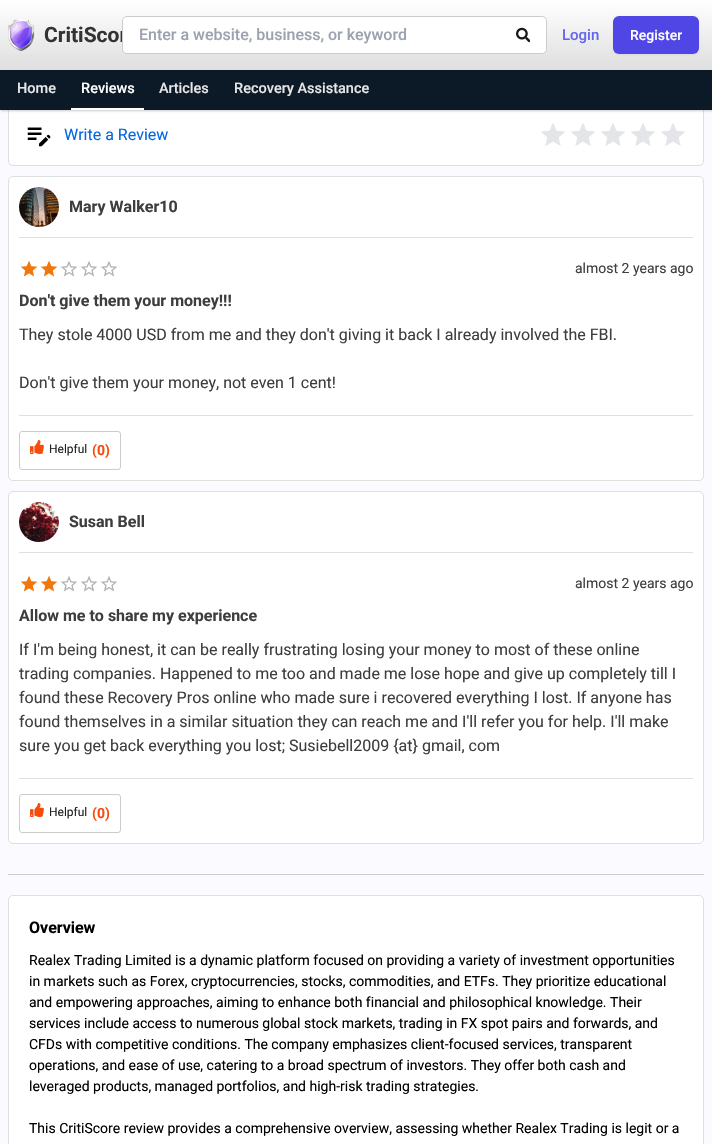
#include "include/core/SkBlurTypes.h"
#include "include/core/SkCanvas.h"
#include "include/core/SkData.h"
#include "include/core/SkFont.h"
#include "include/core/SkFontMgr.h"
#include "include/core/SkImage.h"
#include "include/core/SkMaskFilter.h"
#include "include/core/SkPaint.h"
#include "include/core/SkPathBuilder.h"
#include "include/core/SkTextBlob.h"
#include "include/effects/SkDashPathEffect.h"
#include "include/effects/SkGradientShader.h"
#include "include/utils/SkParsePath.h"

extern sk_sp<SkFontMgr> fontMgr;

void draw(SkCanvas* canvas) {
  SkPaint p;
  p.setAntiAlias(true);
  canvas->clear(SkColorSetRGB(250, 250, 255));
  p.setColor(SK_ColorWHITE);
  canvas->drawRoundRect(SkRect::MakeLTRB(8.5f, 104.5f, 703.5f, 165.5f), 4.5f, 4.5f, p);
  p.setStyle(SkPaint::kStroke_Style);
  p.setStrokeWidth(1);
  p.setColor(SkColorSetRGB(223, 223, 223));
  canvas->drawRoundRect(SkRect::MakeLTRB(8.5f, 104.5f, 703.5f, 165.5f), 4.5f, 4.5f, p);
  p.setStyle(SkPaint::kFill_Style);
  p.setColor(SkColorSetARGB(51, 0, 0, 0));
  p.setMaskFilter(SkMaskFilter::MakeBlur(kNormal_SkBlurStyle, 1));
  canvas->drawRect(SkRect::MakeLTRB(1, 1, 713, 111), p);
  p.setMaskFilter(nullptr);
  {
    const SkColor colors[] = {SK_ColorWHITE, SkColorSetRGB(204, 204, 204)};
    const float stops[] = {0, 1};
    const SkPoint ends[] = {{356, 0}, {356, 110}};
    p.setShader(SkGradientShader::MakeLinear(ends, colors, stops, 2, SkTileMode::kClamp));
    p.setAlpha(255);
  }
  canvas->drawRect(SkRect::MakeLTRB(0, 0, 712, 70), p);
  canvas->drawImageRect(SkImages::DeferredFromEncodedData(SkData::MakeFromFileName("images/1.png")), SkRect::MakeLTRB(8, 19, 35, 51), SkSamplingOptions());
  p.setShader(nullptr);
  p.setColor(SkColorSetARGB(13, 0, 0, 0));
  p.setMaskFilter(SkMaskFilter::MakeBlur(kNormal_SkBlurStyle, 1));
  canvas->drawRoundRect(SkRect::MakeLTRB(613, 17, 699, 55), 6, 6, p);
  p.setMaskFilter(nullptr);
  p.setColor(SkColorSetRGB(79, 70, 229));
  canvas->drawRoundRect(SkRect::MakeLTRB(613, 16, 699, 54), 6, 6, p);
  p.setColor(SkColorSetRGB(12, 25, 38));
  canvas->drawRect(SkRect::MakeLTRB(0, 70, 712, 110), p);
  p.setColor(SK_ColorWHITE);
  canvas->drawRect(SkRect::MakeLTRB(71, 108, 144, 110), p);
  canvas->drawImageRect(SkImages::DeferredFromEncodedData(SkData::MakeFromFileName("images/3.png")), SkRect::MakeLTRB(27, 127, 51, 147), SkSamplingOptions());
  canvas->drawImageRect(SkImages::DeferredFromEncodedData(SkData::MakeFromFileName("images/4.png")), SkRect::MakeLTRB(541, 123, 565, 146), SkSamplingOptions());
  canvas->drawImageRect(SkImages::DeferredFromEncodedData(SkData::MakeFromFileName("images/4.png")), SkRect::MakeLTRB(571, 123, 595, 146), SkSamplingOptions());
  canvas->drawImageRect(SkImages::DeferredFromEncodedData(SkData::MakeFromFileName("images/4.png")), SkRect::MakeLTRB(601, 123, 625, 146), SkSamplingOptions());
  canvas->drawImageRect(SkImages::DeferredFromEncodedData(SkData::MakeFromFileName("images/4.png")), SkRect::MakeLTRB(631, 123, 655, 146), SkSamplingOptions());
  canvas->drawImageRect(SkImages::DeferredFromEncodedData(SkData::MakeFromFileName("images/4.png")), SkRect::MakeLTRB(661, 123, 685, 146), SkSamplingOptions());
  canvas->drawRoundRect(SkRect::MakeLTRB(8.5f, 176.5f, 703.5f, 480.5f), 4.5f, 4.5f, p);
  p.setStyle(SkPaint::kStroke_Style);
  p.setColor(SkColorSetRGB(223, 223, 223));
  canvas->drawRoundRect(SkRect::MakeLTRB(8.5f, 176.5f, 703.5f, 480.5f), 4.5f, 4.5f, p);
  canvas->drawImageRect(SkImages::DeferredFromEncodedData(SkData::MakeFromFileName("images/5.png")), SkRect::MakeLTRB(19, 187, 59, 227), SkSamplingOptions());
  p.setStyle(SkPaint::kFill_Style);
  canvas->drawRect(SkRect::MakeLTRB(19, 237, 693, 238), p);
  canvas->drawRect(SkRect::MakeLTRB(19, 415, 693, 416), p);
  canvas->drawImageRect(SkImages::DeferredFromEncodedData(SkData::MakeFromFileName("images/6.png")), SkRect::MakeLTRB(20, 260, 38, 277), SkSamplingOptions());
  canvas->drawImageRect(SkImages::DeferredFromEncodedData(SkData::MakeFromFileName("images/6.png")), SkRect::MakeLTRB(40, 260, 58, 277), SkSamplingOptions());
  canvas->drawImageRect(SkImages::DeferredFromEncodedData(SkData::MakeFromFileName("images/7.png")), SkRect::MakeLTRB(60, 261, 78, 277), SkSamplingOptions());
  canvas->drawImageRect(SkImages::DeferredFromEncodedData(SkData::MakeFromFileName("images/7.png")), SkRect::MakeLTRB(80, 261, 98, 277), SkSamplingOptions());
  canvas->drawImageRect(SkImages::DeferredFromEncodedData(SkData::MakeFromFileName("images/7.png")), SkRect::MakeLTRB(100, 261, 118, 277), SkSamplingOptions());
  p.setStyle(SkPaint::kStroke_Style);
  p.setColor(SkColorSetRGB(204, 204, 204));
  canvas->drawRoundRect(SkRect::MakeLTRB(19.5f, 431.5f, 120.5f, 469.5f), 2.5f, 2.5f, p);
  canvas->drawImageRect(SkImages::DeferredFromEncodedData(SkData::MakeFromFileName("images/8.png")), SkRect::MakeLTRB(30, 440, 44, 454), SkSamplingOptions());
  p.setStyle(SkPaint::kFill_Style);
  p.setColor(SK_ColorWHITE);
  canvas->drawRoundRect(SkRect::MakeLTRB(8.5f, 491.5f, 703.5f, 843.5f), 4.5f, 4.5f, p);
  p.setStyle(SkPaint::kStroke_Style);
  p.setColor(SkColorSetRGB(223, 223, 223));
  canvas->drawRoundRect(SkRect::MakeLTRB(8.5f, 491.5f, 703.5f, 843.5f), 4.5f, 4.5f, p);
  canvas->drawImageRect(SkImages::DeferredFromEncodedData(SkData::MakeFromFileName("images/9.png")), SkRect::MakeLTRB(19, 502, 59, 542), SkSamplingOptions());
  p.setStyle(SkPaint::kFill_Style);
  canvas->drawRect(SkRect::MakeLTRB(19, 552, 693, 553), p);
  canvas->drawRect(SkRect::MakeLTRB(19, 778, 693, 779), p);
  canvas->drawImageRect(SkImages::DeferredFromEncodedData(SkData::MakeFromFileName("images/6.png")), SkRect::MakeLTRB(20, 575, 38, 592), SkSamplingOptions());
  canvas->drawImageRect(SkImages::DeferredFromEncodedData(SkData::MakeFromFileName("images/6.png")), SkRect::MakeLTRB(40, 575, 58, 592), SkSamplingOptions());
  canvas->drawImageRect(SkImages::DeferredFromEncodedData(SkData::MakeFromFileName("images/7.png")), SkRect::MakeLTRB(60, 576, 78, 592), SkSamplingOptions());
  canvas->drawImageRect(SkImages::DeferredFromEncodedData(SkData::MakeFromFileName("images/7.png")), SkRect::MakeLTRB(80, 576, 98, 592), SkSamplingOptions());
  canvas->drawImageRect(SkImages::DeferredFromEncodedData(SkData::MakeFromFileName("images/7.png")), SkRect::MakeLTRB(100, 576, 118, 592), SkSamplingOptions());
  p.setStyle(SkPaint::kStroke_Style);
  p.setColor(SkColorSetRGB(204, 204, 204));
  canvas->drawRoundRect(SkRect::MakeLTRB(19.5f, 794.5f, 120.5f, 832.5f), 2.5f, 2.5f, p);
  canvas->drawImageRect(SkImages::DeferredFromEncodedData(SkData::MakeFromFileName("images/8.png")), SkRect::MakeLTRB(30, 803, 44, 817), SkSamplingOptions());
  p.setStyle(SkPaint::kFill_Style);
  canvas->drawRect(SkRect::MakeLTRB(8, 874, 704, 875), p);
  p.setColor(SK_ColorWHITE);
  canvas->drawRoundRect(SkRect::MakeLTRB(8.5f, 895.5f, 703.5f, 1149.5f), 4.5f, 4.5f, p);
  p.setStyle(SkPaint::kStroke_Style);
  p.setColor(SkColorSetRGB(223, 223, 223));
  canvas->drawRoundRect(SkRect::MakeLTRB(8.5f, 895.5f, 703.5f, 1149.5f), 4.5f, 4.5f, p);
  SkFont font1(fontMgr->matchFamilyStyle("Roboto", SkFontStyle::Bold()), 21);
  font1.setSubpixel(true);
  p.setStyle(SkPaint::kFill_Style);
  p.setColor(SkColorSetRGB(51, 51, 51));
  canvas->drawString("CritiScor", 44, 42, font1, p);
  p.setColor(SK_ColorWHITE);
  canvas->drawRoundRect(SkRect::MakeLTRB(122.5f, 16.5f, 546.5f, 53.5f), 4.5f, 4.5f, p);
  p.setStyle(SkPaint::kStroke_Style);
  p.setColor(SkColorSetRGB(204, 204, 204));
  canvas->drawRoundRect(SkRect::MakeLTRB(122.5f, 16.5f, 546.5f, 53.5f), 4.5f, 4.5f, p);
  SkFont font2(fontMgr->matchFamilyStyle("Roboto", SkFontStyle(500, SkFontStyle::kNormal_Width, SkFontStyle::kUpright_Slant)), 16);
  font2.setSubpixel(true);
  p.setStyle(SkPaint::kFill_Style);
  p.setColor(SkColorSetRGB(156, 163, 175));
  canvas->drawString("Enter a website, business, or keyword", 139, 40, font2, p);
  canvas->drawImageRect(SkImages::DeferredFromEncodedData(SkData::MakeFromFileName("images/2.png")), SkRect::MakeLTRB(516, 27, 530, 43), SkSamplingOptions());
  SkFont font3(fontMgr->matchFamilyStyle("Roboto", SkFontStyle(500, SkFontStyle::kNormal_Width, SkFontStyle::kUpright_Slant)), 15);
  font3.setSubpixel(true);
  p.setColor(SkColorSetRGB(99, 102, 241));
  canvas->drawString("Login", 562, 40, font3, p);
  SkFont font4(fontMgr->matchFamilyStyle("Roboto", SkFontStyle(500, SkFontStyle::kNormal_Width, SkFontStyle::kUpright_Slant)), 14);
  font4.setSubpixel(true);
  p.setColor(SK_ColorWHITE);
  canvas->drawString("Register", 630, 40, font4, p);
  SkFont font5(fontMgr->matchFamilyStyle("Roboto", SkFontStyle(500, SkFontStyle::kNormal_Width, SkFontStyle::kUpright_Slant)), 14.5f);
  font5.setSubpixel(true);
  p.setColor(SkColorSetRGB(231, 231, 231));
  canvas->drawString("Home", 17, 93, font5, p);
  p.setColor(SK_ColorWHITE);
  canvas->drawString("Reviews", 81, 93, font5, p);
  p.setColor(SkColorSetRGB(231, 231, 231));
  canvas->drawString("Articles", 159, 93, font5, p);
  canvas->drawString("Recovery Assistance", 234, 93, font5, p);
  SkFont font6(fontMgr->matchFamilyStyle("Roboto", SkFontStyle::Normal()), 16);
  font6.setSubpixel(true);
  p.setColor(SkColorSetRGB(0, 103, 228));
  canvas->drawString("Write a Review", 64, 140, font6, p);
  SkFont font7(fontMgr->matchFamilyStyle("Roboto", SkFontStyle::Bold()), 16);
  font7.setSubpixel(true);
  p.setColor(SkColorSetRGB(62, 62, 62));
  canvas->drawString("Mary Walker10", 69, 212, font7, p);
  SkFont font8(fontMgr->matchFamilyStyle("Roboto", SkFontStyle::Normal()), 14);
  font8.setSubpixel(true);
  canvas->drawString("almost 2 years ago", 575, 273, font8, p);
  canvas->drawString("Don't give them your money!!!", 19, 306, font7, p);
  canvas->drawString("They stole 4000 USD from me and they don't giving it back I already involved the FBI.", 19, 340, font6, p);
  canvas->drawString("Don't give them your money, not even 1 cent!", 19, 388, font6, p);
  SkFont font9(fontMgr->matchFamilyStyle("Roboto", SkFontStyle::Normal()), 12);
  font9.setSubpixel(true);
  p.setColor(SkColorSetRGB(35, 35, 35));
  canvas->drawString("Helpful", 49, 453, font9, p);
  SkFont font10(fontMgr->matchFamilyStyle("Roboto", SkFontStyle::Bold()), 14);
  font10.setSubpixel(true);
  p.setColor(SkColorSetRGB(247, 75, 12));
  canvas->drawString("(0)", 92, 455, font10, p);
  p.setColor(SkColorSetRGB(62, 62, 62));
  canvas->drawString("Susan Bell", 69, 527, font7, p);
  canvas->drawString("almost 2 years ago", 575, 588, font8, p);
  canvas->drawString("Allow me to share my experience", 19, 621, font7, p);
  canvas->drawString("If I'm being honest, it can be really frustrating losing your money to most of these online", 19, 655, font6, p);
  canvas->drawString("trading companies. Happened to me too and made me lose hope and give up completely till I", 19, 679, font6, p);
  canvas->drawString("found these Recovery Pros online who made sure i recovered everything I lost. If anyone has", 19, 703, font6, p);
  canvas->drawString("found themselves in a similar situation they can reach me and I'll refer you for help. I'll make", 19, 727, font6, p);
  canvas->drawString("sure you get back everything you lost; Susiebell2009 {at} gmail, com", 19, 751, font6, p);
  p.setColor(SkColorSetRGB(35, 35, 35));
  canvas->drawString("Helpful", 49, 816, font9, p);
  p.setColor(SkColorSetRGB(247, 75, 12));
  canvas->drawString("(0)", 92, 818, font10, p);
  p.setColor(SK_ColorBLACK);
  canvas->drawString("Overview", 29, 933, font7, p);
  canvas->drawString("Realex Trading Limited is a dynamic platform focused on providing a variety of investment opportunities", 29, 965, font8, p);
  canvas->drawString("in markets such as Forex, cryptocurrencies, stocks, commodities, and ETFs. They prioritize educational", 29, 986, font8, p);
  canvas->drawString("and empowering approaches, aiming to enhance both financial and philosophical knowledge. Their", 29, 1007, font8, p);
  canvas->drawString("services include access to numerous global stock markets, trading in FX spot pairs and forwards, and", 29, 1028, font8, p);
  canvas->drawString("CFDs with competitive conditions. The company emphasizes client-focused services, transparent", 29, 1049, font8, p);
  canvas->drawString("operations, and ease of use, catering to a broad spectrum of investors. They offer both cash and", 29, 1070, font8, p);
  canvas->drawString("leveraged products, managed portfolios, and high-risk trading strategies.", 29, 1091, font8, p);
  canvas->drawString("This CritiScore review provides a comprehensive overview, assessing whether Realex Trading is legit or a", 29, 1133, font8, p);
}
